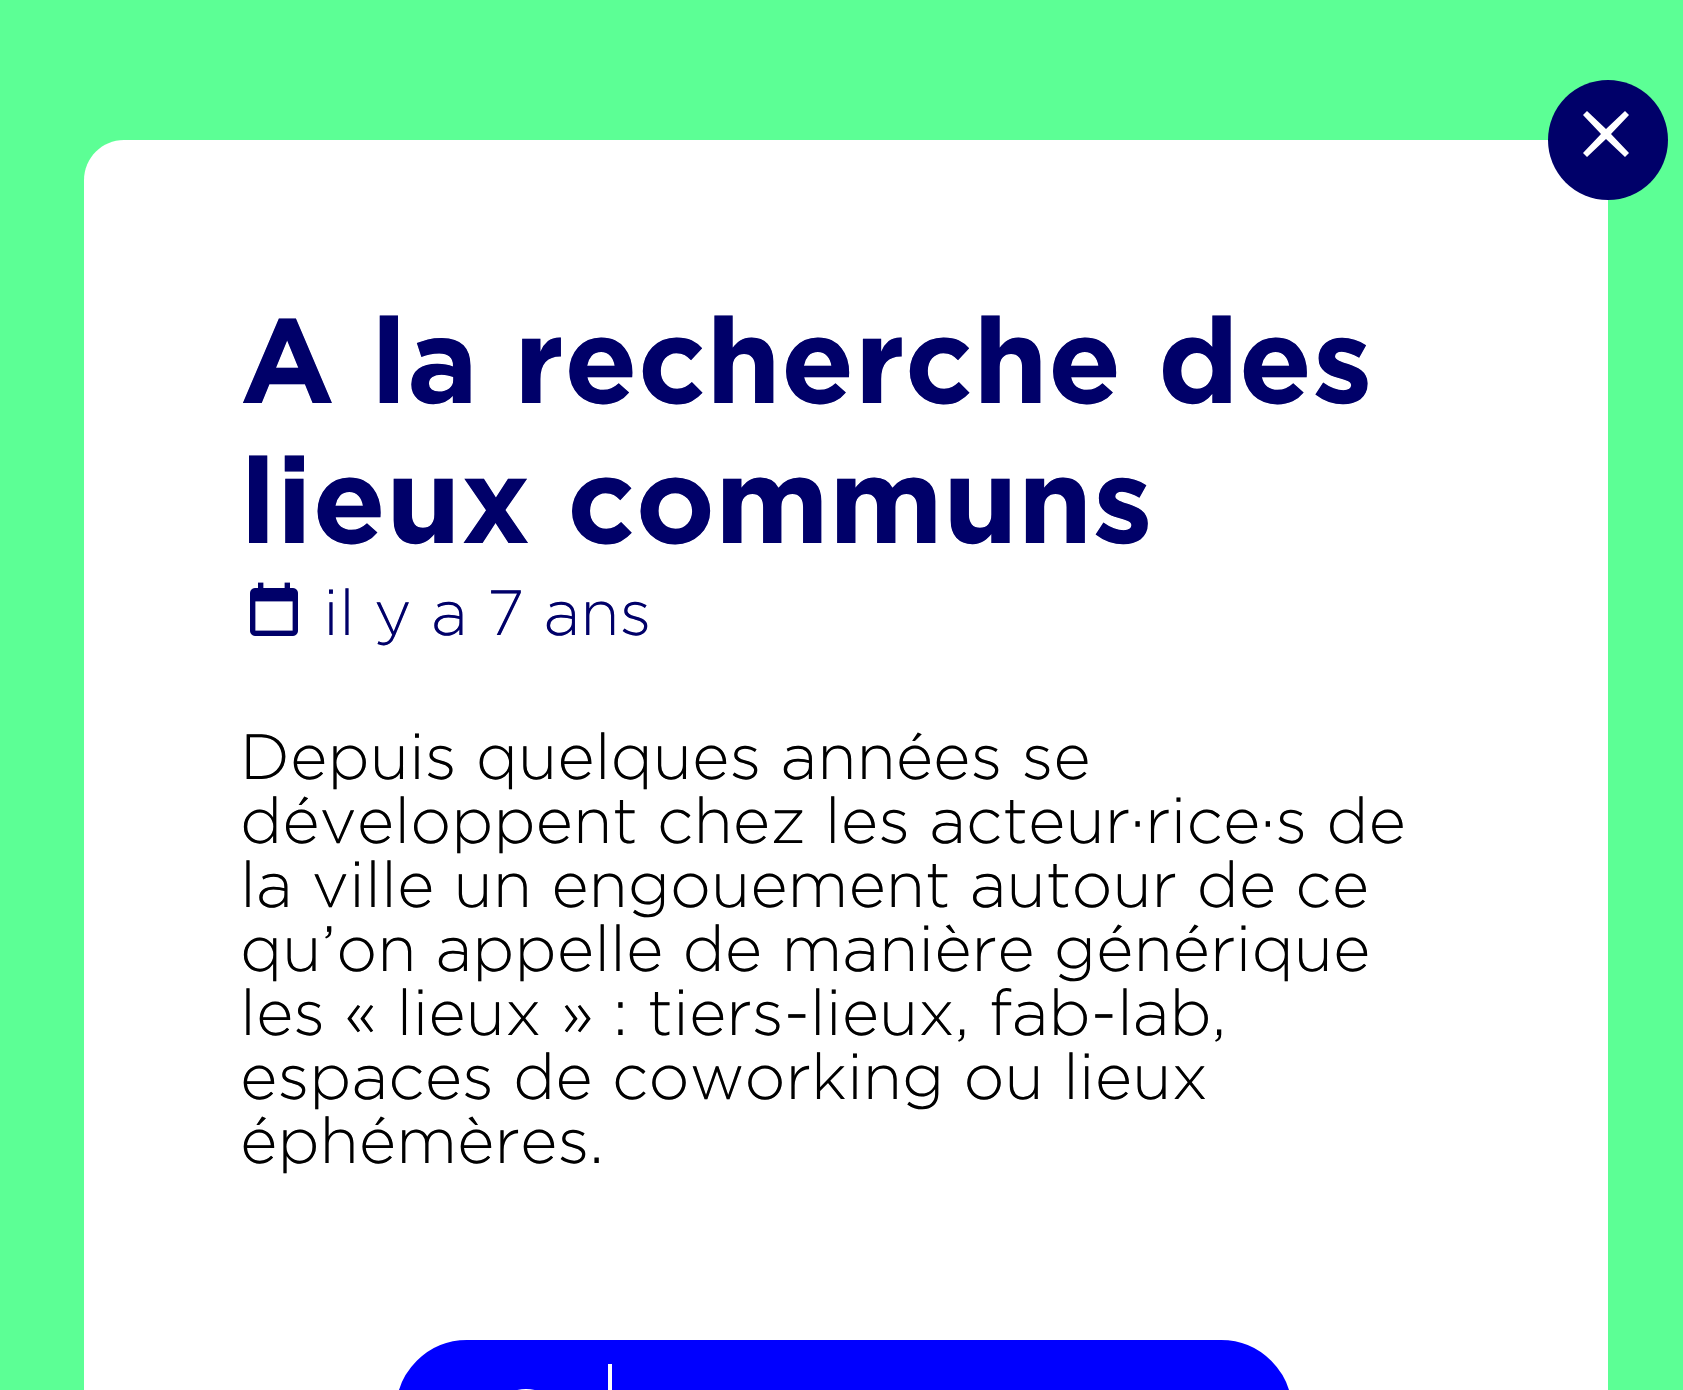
#include "include/core/SkBlurTypes.h"
#include "include/core/SkCanvas.h"
#include "include/core/SkData.h"
#include "include/core/SkFont.h"
#include "include/core/SkFontMgr.h"
#include "include/core/SkImage.h"
#include "include/core/SkMaskFilter.h"
#include "include/core/SkPaint.h"
#include "include/core/SkPathBuilder.h"
#include "include/core/SkTextBlob.h"
#include "include/effects/SkDashPathEffect.h"
#include "include/effects/SkGradientShader.h"
#include "include/utils/SkParsePath.h"

extern sk_sp<SkFontMgr> fontMgr;

void draw(SkCanvas* canvas) {
  SkPaint p;
  p.setAntiAlias(true);
  canvas->clear(SkColorSetRGB(92, 255, 149));
  p.setColor(SK_ColorWHITE);
  canvas->drawPath(SkPathBuilder().moveTo(124, 140).lineTo(1568, 140).cubicTo(1590, 140, 1608, 158, 1608, 180).lineTo(1608, 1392).lineTo(84, 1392).lineTo(84, 180).cubicTo(84, 158, 102, 140, 124, 140).close().detach(), p);
  p.setColor(SkColorSetRGB(0, 0, 105));
  canvas->drawCircle(1608, 140, 60, p);
  p.setColor(SK_ColorWHITE);
  canvas->drawPath(SkPathBuilder().moveTo(1629, 115).lineTo(1625, 111).lineTo(1606, 129).lineTo(1587, 111).lineTo(1583, 115).lineTo(1601, 134).lineTo(1583, 153).lineTo(1587, 157).lineTo(1606, 139).lineTo(1625, 157).lineTo(1629, 153).lineTo(1611, 134).close().detach(), p);
  canvas->drawImageRect(SkImages::DeferredFromEncodedData(SkData::MakeFromFileName("images/1.png")), SkRect::MakeLTRB(250, 582, 298, 636), SkSamplingOptions());
  p.setColor(SkColorSetRGB(0, 0, 255));
  canvas->drawPath(SkPathBuilder().moveTo(476, 1340).lineTo(1212, 1340).cubicTo(1256, 1340, 1292, 1376, 1292, 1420).lineTo(1292, 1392).lineTo(396, 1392).lineTo(396, 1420).cubicTo(396, 1376, 432, 1340, 476, 1340).close().detach(), p);
  p.setStyle(SkPaint::kStroke_Style);
  p.setStrokeWidth(12);
  canvas->drawRoundRect(SkRect::MakeLTRB(402, 1346, 1286, 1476), 74, 74, p);
  p.setStyle(SkPaint::kFill_Style);
  p.setColor(SK_ColorWHITE);
  canvas->drawRect(SkRect::MakeLTRB(608, 1364, 612, 1390), p);
  canvas->drawPath(SkPathBuilder().moveTo(526, 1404).cubicTo(513, 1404, 513, 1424, 526, 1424).cubicTo(539, 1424, 539, 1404, 526, 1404).close().moveTo(526, 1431).cubicTo(504, 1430, 504, 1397, 526, 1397).cubicTo(548, 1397, 548, 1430, 526, 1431).close().moveTo(526, 1389).cubicTo(510, 1389, 495, 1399, 489, 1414).cubicTo(503, 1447, 549, 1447, 563, 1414).cubicTo(557, 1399, 542, 1389, 526, 1389).close().detach(), p);
  SkFont font1(fontMgr->matchFamilyStyle("Gotham", SkFontStyle::Bold()), 120);
  font1.setSubpixel(true);
  p.setColor(SkColorSetRGB(0, 0, 105));
  canvas->drawString("A la recherche des", 240, 403, font1, p);
  canvas->drawString("lieux communs", 240, 543, font1, p);
  SkFont font2(fontMgr->matchFamilyStyle("Gotham", SkFontStyle(300, SkFontStyle::kNormal_Width, SkFontStyle::kUpright_Slant)), 64);
  font2.setSubpixel(true);
  canvas->drawString("il y a 7 ans", 323, 635, font2, p);
  p.setColor(SK_ColorBLACK);
  canvas->drawString("Depuis quelques années se", 240, 779, font2, p);
  canvas->drawString("développent chez les acteur·rice·s de", 240, 843, font2, p);
  canvas->drawString("la ville un engouement autour de ce", 240, 907, font2, p);
  canvas->drawString("qu’on appelle de manière générique", 240, 971, font2, p);
  canvas->drawString("les « lieux » : tiers-lieux, fab-lab,", 240, 1035, font2, p);
  canvas->drawString("espaces de coworking ou lieux", 240, 1099, font2, p);
  canvas->drawString("éphémères.", 240, 1163, font2, p);
}
